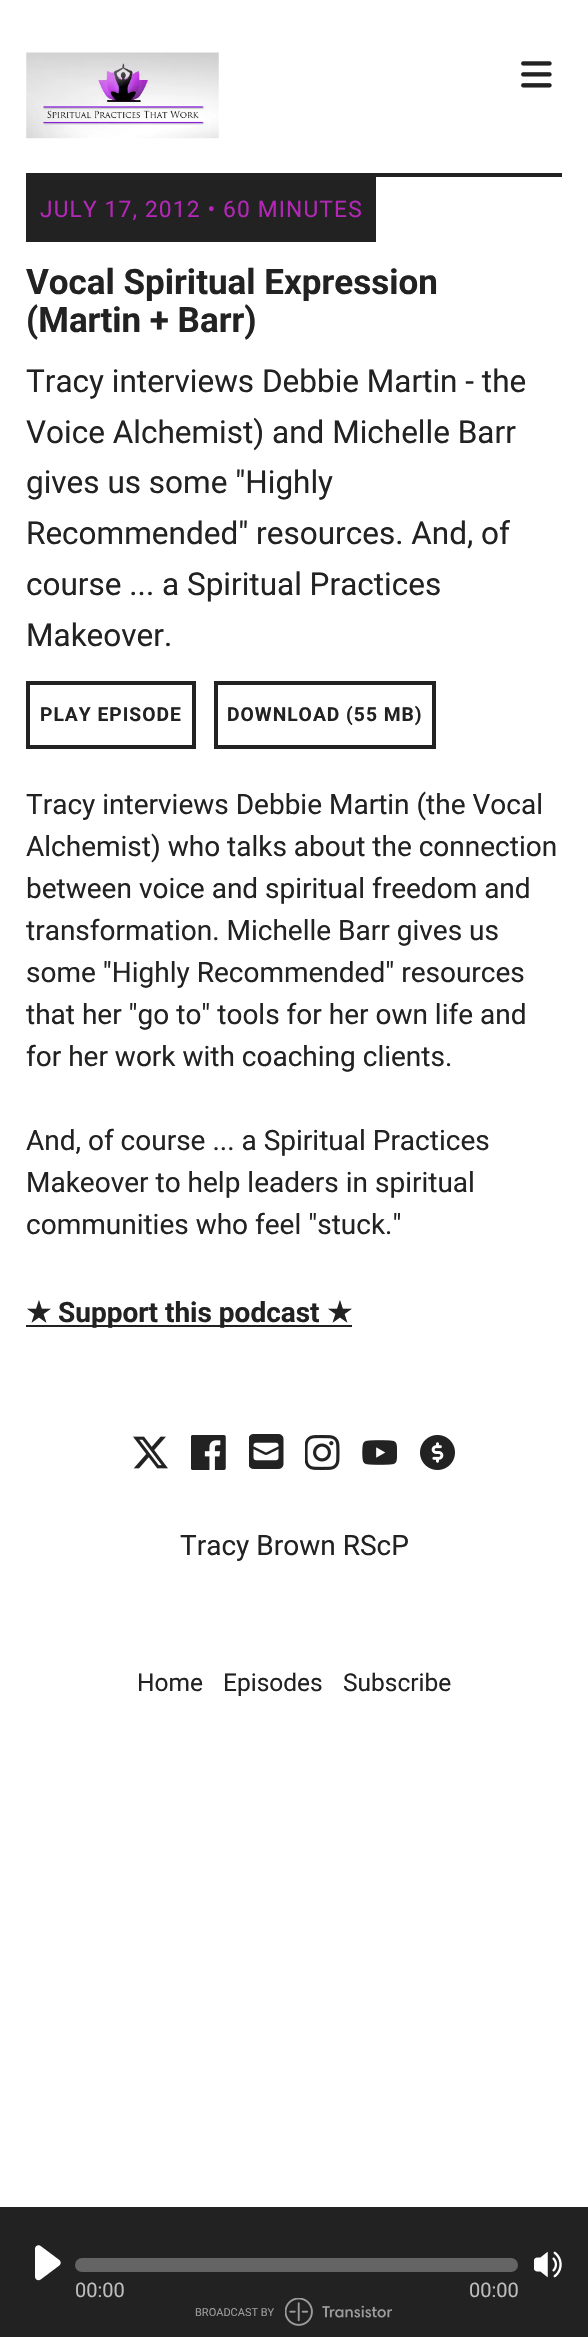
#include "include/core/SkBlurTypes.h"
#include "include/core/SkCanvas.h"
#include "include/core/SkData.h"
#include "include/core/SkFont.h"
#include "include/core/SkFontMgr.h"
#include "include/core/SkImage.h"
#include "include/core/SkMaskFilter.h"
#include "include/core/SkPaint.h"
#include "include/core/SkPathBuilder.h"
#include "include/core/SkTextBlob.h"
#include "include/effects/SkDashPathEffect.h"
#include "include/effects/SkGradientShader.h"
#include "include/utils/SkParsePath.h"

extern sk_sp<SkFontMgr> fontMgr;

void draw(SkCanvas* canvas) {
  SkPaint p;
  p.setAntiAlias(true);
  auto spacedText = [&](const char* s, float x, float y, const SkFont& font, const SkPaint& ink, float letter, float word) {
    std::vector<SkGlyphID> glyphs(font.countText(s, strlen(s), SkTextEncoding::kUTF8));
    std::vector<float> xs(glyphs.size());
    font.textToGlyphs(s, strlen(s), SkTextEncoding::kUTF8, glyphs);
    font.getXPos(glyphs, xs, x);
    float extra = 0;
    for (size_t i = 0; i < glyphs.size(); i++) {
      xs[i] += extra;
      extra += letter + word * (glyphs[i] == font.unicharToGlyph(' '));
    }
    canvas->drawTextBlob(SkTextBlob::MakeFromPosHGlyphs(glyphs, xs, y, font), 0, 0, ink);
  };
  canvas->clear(SK_ColorWHITE);
  canvas->drawImageRect(SkImages::DeferredFromEncodedData(SkData::MakeFromFileName("images/1.png")), SkRect::MakeLTRB(521, 61, 552, 88), SkSamplingOptions());
  canvas->drawImageRect(SkImages::DeferredFromEncodedData(SkData::MakeFromFileName("images/2.png")), SkRect::MakeLTRB(26, 52, 219, 139), SkSamplingOptions());
  p.setColor(SkColorSetRGB(34, 34, 34));
  canvas->drawRect(SkRect::MakeLTRB(26, 173, 562, 177), p);
  canvas->drawRect(SkRect::MakeLTRB(26, 177, 376, 242), p);
  p.setStyle(SkPaint::kStroke_Style);
  p.setStrokeWidth(4);
  canvas->drawRect(SkRect::MakeLTRB(28, 683, 194, 747), p);
  canvas->drawRect(SkRect::MakeLTRB(216, 683, 434, 747), p);
  p.setStyle(SkPaint::kFill_Style);
  canvas->drawRect(SkRect::MakeLTRB(26, 1325, 352, 1327), p);
  canvas->drawImageRect(SkImages::DeferredFromEncodedData(SkData::MakeFromFileName("images/3.png")), SkRect::MakeLTRB(133, 1436, 168, 1469), SkSamplingOptions());
  canvas->drawImageRect(SkImages::DeferredFromEncodedData(SkData::MakeFromFileName("images/4.png")), SkRect::MakeLTRB(191, 1435, 226, 1470), SkSamplingOptions());
  canvas->drawImageRect(SkImages::DeferredFromEncodedData(SkData::MakeFromFileName("images/5.png")), SkRect::MakeLTRB(249, 1434, 284, 1469), SkSamplingOptions());
  canvas->drawImageRect(SkImages::DeferredFromEncodedData(SkData::MakeFromFileName("images/6.png")), SkRect::MakeLTRB(305, 1435, 340, 1470), SkSamplingOptions());
  canvas->drawImageRect(SkImages::DeferredFromEncodedData(SkData::MakeFromFileName("images/7.png")), SkRect::MakeLTRB(362, 1440, 397, 1465), SkSamplingOptions());
  canvas->drawImageRect(SkImages::DeferredFromEncodedData(SkData::MakeFromFileName("images/8.png")), SkRect::MakeLTRB(420, 1435, 455, 1470), SkSamplingOptions());
  canvas->drawRect(SkRect::MakeLTRB(0, 2207, 588, 2337), p);
  canvas->drawImageRect(SkImages::DeferredFromEncodedData(SkData::MakeFromFileName("images/9.png")), SkRect::MakeLTRB(35, 2245, 61, 2281), SkSamplingOptions());
  canvas->drawImageRect(SkImages::DeferredFromEncodedData(SkData::MakeFromFileName("images/10.png")), SkRect::MakeLTRB(534, 2251, 562, 2278), SkSamplingOptions());
  p.setColor(SkColorSetRGB(100, 100, 100));
  canvas->drawRoundRect(SkRect::MakeLTRB(75, 2258, 518, 2272), 7, 7, p);
  canvas->drawImageRect(SkImages::DeferredFromEncodedData(SkData::MakeFromFileName("images/11.png")), SkRect::MakeLTRB(285, 2298, 392, 2326), SkSamplingOptions());
  SkFont font1(fontMgr->matchFamilyStyle("Roboto", SkFontStyle::Normal()), 22.75f);
  font1.setSubpixel(true);
  p.setColor(SkColorSetRGB(179, 39, 182));
  spacedText("JULY 17, 2012 • 60 MINUTES", 40, 217, font1, p, 1.15f, 0);
  SkFont font2(fontMgr->matchFamilyStyle("Roboto", SkFontStyle::Bold()), 35);
  font2.setSubpixel(true);
  p.setColor(SkColorSetRGB(34, 34, 34));
  canvas->drawString("Vocal Spiritual Expression", 26, 294, font2, p);
  canvas->drawString("(Martin + Barr)", 26, 332, font2, p);
  SkFont font3(fontMgr->matchFamilyStyle("Roboto", SkFontStyle::Normal()), 31.5f);
  font3.setSubpixel(true);
  canvas->drawString("Tracy interviews Debbie Martin - the", 26, 392, font3, p);
  canvas->drawString("Voice Alchemist) and Michelle Barr", 26, 443, font3, p);
  canvas->drawString("gives us some \"Highly", 26, 493, font3, p);
  canvas->drawString("Recommended\" resources. And, of", 26, 544, font3, p);
  canvas->drawString("course ... a Spiritual Practices", 26, 595, font3, p);
  canvas->drawString("Makeover.", 26, 646, font3, p);
  SkFont font4(fontMgr->matchFamilyStyle("Roboto", SkFontStyle::Bold()), 19.25f);
  font4.setSubpixel(true);
  spacedText("PLAY EPISODE", 40, 721, font4, p, 1, 0);
  spacedText("DOWNLOAD (55 MB)", 227, 721, font4, p, 1, 0);
  SkFont font5(fontMgr->matchFamilyStyle("Roboto", SkFontStyle::Normal()), 28);
  font5.setSubpixel(true);
  canvas->drawString("Tracy interviews Debbie Martin (the Vocal", 26, 814, font5, p);
  canvas->drawString("Alchemist) who talks about the connection", 26, 856, font5, p);
  canvas->drawString("between voice and spiritual freedom and", 26, 898, font5, p);
  canvas->drawString("transformation. Michelle Barr gives us", 26, 940, font5, p);
  canvas->drawString("some \"Highly Recommended\" resources", 26, 982, font5, p);
  canvas->drawString("that her \"go to\" tools for her own life and", 26, 1024, font5, p);
  canvas->drawString("for her work with coaching clients.", 26, 1066, font5, p);
  canvas->drawString("And, of course ... a Spiritual Practices", 26, 1150, font5, p);
  canvas->drawString("Makeover to help leaders in spiritual", 26, 1192, font5, p);
  canvas->drawString("communities who feel \"stuck.\"", 26, 1234, font5, p);
  SkFont font6(fontMgr->matchFamilyStyle("DejaVu Sans", SkFontStyle::Bold()), 28);
  font6.setSubpixel(true);
  canvas->drawString("★", 26, 1322, font6, p);
  SkFont font7(fontMgr->matchFamilyStyle("Roboto", SkFontStyle::Bold()), 28);
  font7.setSubpixel(true);
  canvas->drawString("Support this podcast", 58, 1322, font7, p);
  canvas->drawString("★", 327, 1322, font6, p);
  canvas->drawString("Tracy Brown RScP", 180, 1555, font5, p);
  SkFont font8(fontMgr->matchFamilyStyle("Roboto", SkFontStyle::Normal()), 24.5f);
  font8.setSubpixel(true);
  canvas->drawString("Home", 137, 1691, font8, p);
  canvas->drawString("Episodes", 223, 1691, font8, p);
  canvas->drawString("Subscribe", 343, 1691, font8, p);
  SkFont font9(fontMgr->matchFamilyStyle("Roboto", SkFontStyle::Normal()), 20);
  font9.setSubpixel(true);
  p.setColor(SkColorSetRGB(189, 189, 189));
  canvas->drawString("00:00", 75, 2297, font9, p);
  canvas->drawString("00:00", 469, 2297, font9, p);
  SkFont font10(fontMgr->matchFamilyStyle("Roboto", SkFontStyle::Normal()), 11);
  font10.setSubpixel(true);
  p.setColor(SkColorSetRGB(156, 156, 156));
  canvas->drawString("BROADCAST BY", 195, 2316, font10, p);
}
